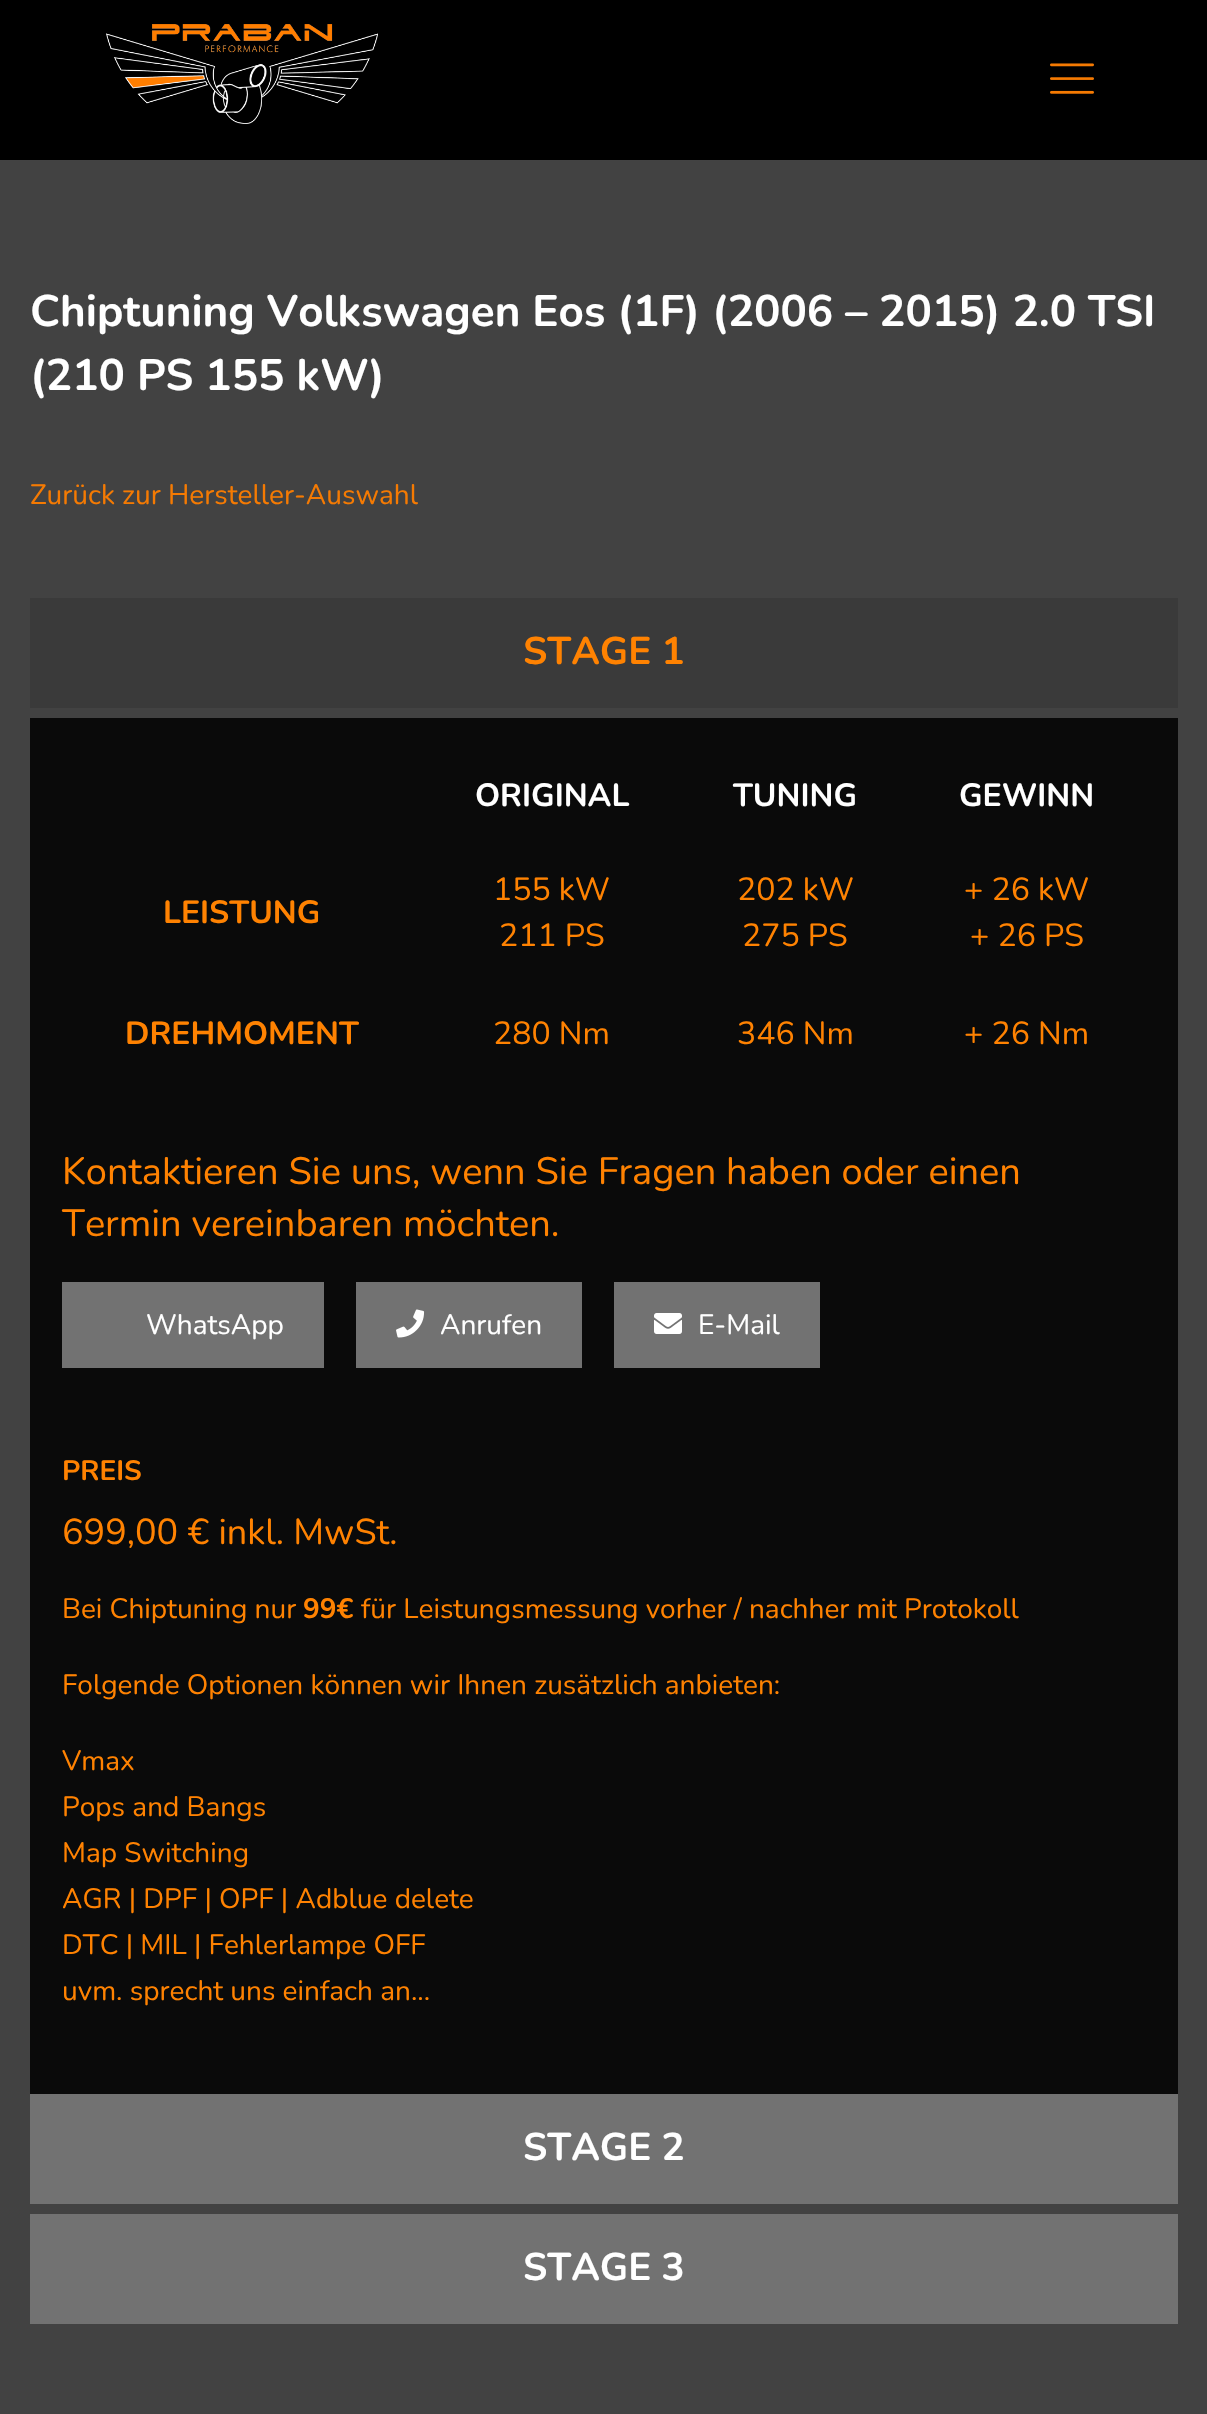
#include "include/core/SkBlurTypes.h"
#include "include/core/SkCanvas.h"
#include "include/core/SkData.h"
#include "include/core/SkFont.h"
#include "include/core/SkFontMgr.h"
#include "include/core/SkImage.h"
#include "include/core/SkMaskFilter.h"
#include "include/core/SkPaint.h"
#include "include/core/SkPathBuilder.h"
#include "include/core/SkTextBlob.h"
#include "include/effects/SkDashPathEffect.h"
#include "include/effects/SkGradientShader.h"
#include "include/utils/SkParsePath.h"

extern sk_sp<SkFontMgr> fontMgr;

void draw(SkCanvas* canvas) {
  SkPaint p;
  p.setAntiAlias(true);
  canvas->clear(SkColorSetRGB(66, 66, 66));
  p.setColor(SK_ColorBLACK);
  canvas->drawRect(SkRect::MakeLTRB(0, 0, 1207, 160), p);
  canvas->drawImageRect(SkImages::DeferredFromEncodedData(SkData::MakeFromFileName("images/1.png")), SkRect::MakeLTRB(106, 24, 378, 124), SkSamplingOptions());
  canvas->drawImageRect(SkImages::DeferredFromEncodedData(SkData::MakeFromFileName("images/2.png")), SkRect::MakeLTRB(1050, 63, 1094, 94), SkSamplingOptions());
  p.setColor(SkColorSetRGB(58, 58, 58));
  canvas->drawRect(SkRect::MakeLTRB(30, 598, 1178, 708), p);
  p.setColor(SkColorSetRGB(10, 10, 10));
  canvas->drawRect(SkRect::MakeLTRB(30, 718, 1178, 2094), p);
  p.setColor(SkColorSetRGB(114, 114, 114));
  canvas->drawRect(SkRect::MakeLTRB(62, 1282, 324, 1368), p);
  canvas->drawRect(SkRect::MakeLTRB(356, 1282, 582, 1368), p);
  canvas->drawImageRect(SkImages::DeferredFromEncodedData(SkData::MakeFromFileName("images/3.png")), SkRect::MakeLTRB(396, 1309, 425, 1338), SkSamplingOptions());
  canvas->drawRect(SkRect::MakeLTRB(614, 1282, 820, 1368), p);
  canvas->drawImageRect(SkImages::DeferredFromEncodedData(SkData::MakeFromFileName("images/4.png")), SkRect::MakeLTRB(654, 1313, 682, 1334), SkSamplingOptions());
  canvas->drawRect(SkRect::MakeLTRB(30, 2094, 1178, 2204), p);
  canvas->drawRect(SkRect::MakeLTRB(30, 2214, 1178, 2324), p);
  SkFont font1(fontMgr->matchFamilyStyle("Nunito", SkFontStyle::Bold()), 44);
  font1.setSubpixel(true);
  p.setColor(SK_ColorWHITE);
  canvas->drawString("Chiptuning Volkswagen Eos (1F) (2006 – 2015) 2.0 TSI", 30, 326, font1, p);
  canvas->drawString("(210 PS 155 kW)", 30, 390, font1, p);
  SkFont font2(fontMgr->matchFamilyStyle("Nunito", SkFontStyle::Normal()), 28);
  font2.setSubpixel(true);
  p.setColor(SkColorSetRGB(245, 122, 2));
  canvas->drawString("Zurück zur Hersteller-Auswahl", 30, 504, font2, p);
  SkFont font3(fontMgr->matchFamilyStyle("Nunito", SkFontStyle::Bold()), 38.5f);
  font3.setSubpixel(true);
  p.setColor(SkColorSetRGB(255, 130, 1));
  canvas->drawString("STAGE 1", 523, 664, font3, p);
  SkFont font4(fontMgr->matchFamilyStyle("Nunito", SkFontStyle::Bold()), 32);
  font4.setSubpixel(true);
  p.setColor(SK_ColorWHITE);
  canvas->drawString("ORIGINAL", 475, 806, font4, p);
  canvas->drawString("TUNING", 733, 806, font4, p);
  canvas->drawString("GEWINN", 959, 806, font4, p);
  p.setColor(SkColorSetRGB(255, 130, 1));
  canvas->drawString("LEISTUNG", 163, 923, font4, p);
  SkFont font5(fontMgr->matchFamilyStyle("Nunito", SkFontStyle::Normal()), 32);
  font5.setSubpixel(true);
  canvas->drawString("155 kW", 493, 900, font5, p);
  canvas->drawString("211 PS", 499, 946, font5, p);
  canvas->drawString("202 kW", 737, 900, font5, p);
  canvas->drawString("275 PS", 742, 946, font5, p);
  canvas->drawString("+ 26 kW", 964, 900, font5, p);
  canvas->drawString("+ 26 PS", 970, 946, font5, p);
  canvas->drawString("DREHMOMENT", 125, 1044, font4, p);
  canvas->drawString("280 Nm", 493, 1044, font5, p);
  canvas->drawString("346 Nm", 737, 1044, font5, p);
  canvas->drawString("+ 26 Nm", 964, 1044, font5, p);
  SkFont font6(fontMgr->matchFamilyStyle("Nunito", SkFontStyle::Normal()), 38);
  font6.setSubpixel(true);
  canvas->drawString("Kontaktieren Sie uns, wenn Sie Fragen haben oder einen", 62, 1184, font6, p);
  canvas->drawString("Termin vereinbaren möchten.", 62, 1236, font6, p);
  p.setColor(SK_ColorWHITE);
  canvas->drawString("WhatsApp", 146, 1334, font2, p);
  canvas->drawString("Anrufen", 440, 1334, font2, p);
  canvas->drawString("E-Mail", 698, 1334, font2, p);
  SkFont font7(fontMgr->matchFamilyStyle("Nunito", SkFontStyle::Bold()), 28);
  font7.setSubpixel(true);
  p.setColor(SkColorSetRGB(255, 130, 1));
  canvas->drawString("PREIS", 62, 1480, font7, p);
  SkFont font8(fontMgr->matchFamilyStyle("Nunito", SkFontStyle::Normal()), 36);
  font8.setSubpixel(true);
  canvas->drawString("699,00 € inkl. MwSt.", 62, 1544, font8, p);
  canvas->drawString("Bei Chiptuning nur", 62, 1618, font2, p);
  canvas->drawString("99€", 303, 1618, font7, p);
  canvas->drawString("für Leistungsmessung vorher / nachher mit Protokoll", 361, 1618, font2, p);
  canvas->drawString("Folgende Optionen können wir Ihnen zusätzlich anbieten:", 62, 1694, font2, p);
  canvas->drawString("Vmax", 62, 1770, font2, p);
  canvas->drawString("Pops and Bangs", 62, 1816, font2, p);
  canvas->drawString("Map Switching", 62, 1862, font2, p);
  canvas->drawString("AGR | DPF | OPF | Adblue delete", 62, 1908, font2, p);
  canvas->drawString("DTC | MIL | Fehlerlampe OFF", 62, 1954, font2, p);
  canvas->drawString("uvm. sprecht uns einfach an...", 62, 2000, font2, p);
  p.setColor(SK_ColorWHITE);
  canvas->drawString("STAGE 2", 523, 2160, font3, p);
  canvas->drawString("STAGE 3", 523, 2280, font3, p);
}
